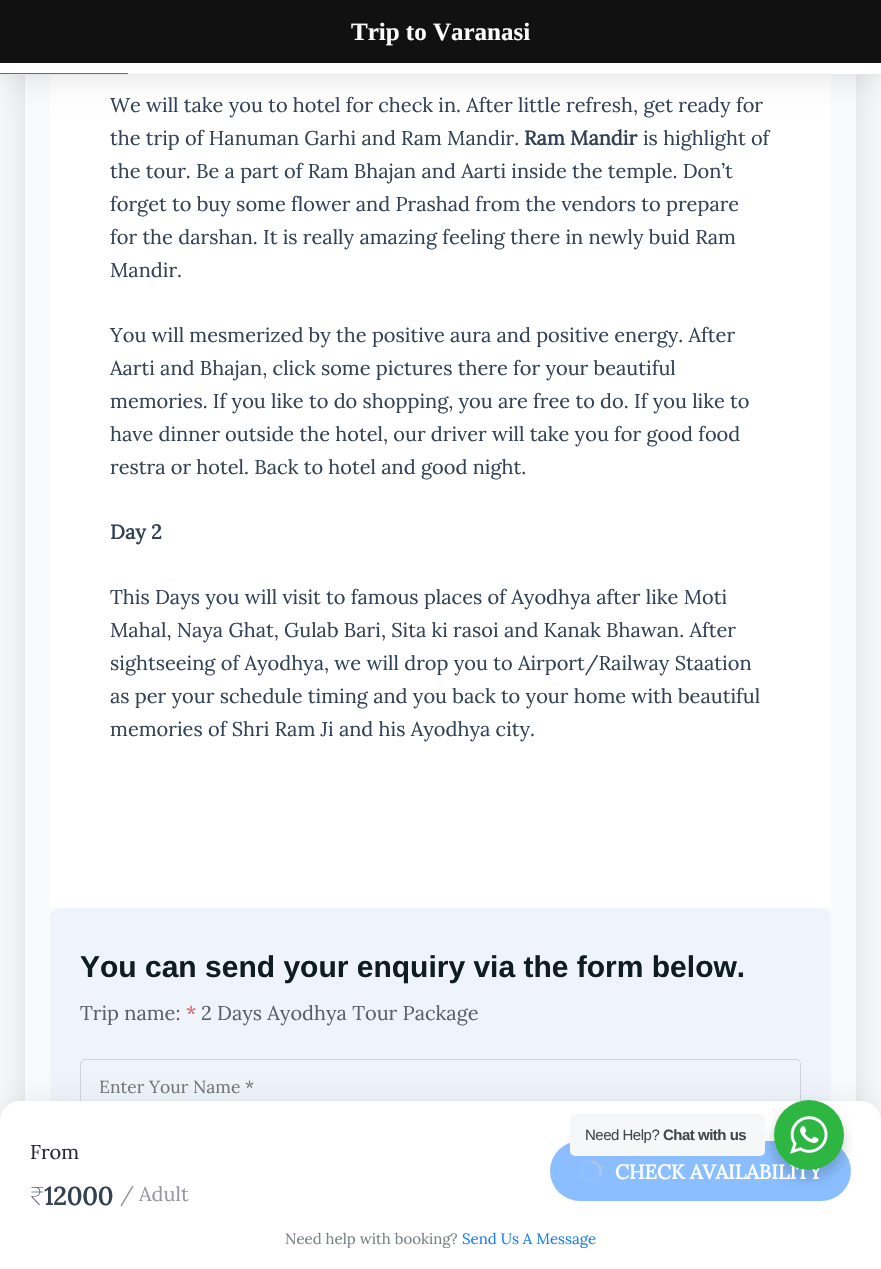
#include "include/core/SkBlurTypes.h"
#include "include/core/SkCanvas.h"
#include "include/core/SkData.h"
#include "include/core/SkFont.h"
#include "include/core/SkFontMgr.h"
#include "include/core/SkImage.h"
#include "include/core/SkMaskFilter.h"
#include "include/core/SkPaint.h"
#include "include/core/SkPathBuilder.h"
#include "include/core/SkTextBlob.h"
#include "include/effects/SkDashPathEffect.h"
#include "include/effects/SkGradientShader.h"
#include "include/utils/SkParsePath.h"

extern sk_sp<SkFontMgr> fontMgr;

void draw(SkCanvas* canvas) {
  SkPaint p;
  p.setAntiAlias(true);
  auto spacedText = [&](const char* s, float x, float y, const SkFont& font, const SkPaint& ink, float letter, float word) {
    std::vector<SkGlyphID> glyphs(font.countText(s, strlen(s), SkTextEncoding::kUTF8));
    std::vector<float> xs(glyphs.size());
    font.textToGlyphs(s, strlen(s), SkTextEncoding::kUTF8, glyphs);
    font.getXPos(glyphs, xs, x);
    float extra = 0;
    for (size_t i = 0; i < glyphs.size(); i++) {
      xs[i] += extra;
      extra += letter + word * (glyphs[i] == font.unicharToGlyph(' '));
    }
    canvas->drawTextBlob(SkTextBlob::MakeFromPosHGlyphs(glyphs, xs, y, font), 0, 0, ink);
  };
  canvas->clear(SkColorSetRGB(249, 250, 251));
  canvas->save();
  canvas->clipPath(SkPathBuilder(SkPathFillType::kEvenOdd).moveTo(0, 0).lineTo(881, 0).lineTo(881, 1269).lineTo(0, 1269).close().moveTo(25, -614).lineTo(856, -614).lineTo(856, 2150).lineTo(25, 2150).close().detach(), true);
  p.setColor(SkColorSetARGB(51, 100, 100, 111));
  p.setMaskFilter(SkMaskFilter::MakeBlur(kNormal_SkBlurStyle, 18));
  canvas->drawRect(SkRect::MakeLTRB(25, -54, 856, 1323), p);
  p.setMaskFilter(nullptr);
  canvas->restore();
  p.setColor(SK_ColorWHITE);
  canvas->drawRect(SkRect::MakeLTRB(50, 75, 831, 908), p);
  p.setColor(SkColorSetARGB(26, 0, 0, 0));
  p.setMaskFilter(SkMaskFilter::MakeBlur(kNormal_SkBlurStyle, 15.5f));
  canvas->drawRect(SkRect::MakeLTRB(0, 3, 881, 78), p);
  p.setMaskFilter(nullptr);
  p.setColor(SkColorSetRGB(17, 17, 17));
  canvas->drawRect(SkRect::MakeLTRB(0, 0, 881, 63), p);
  p.setColor(SK_ColorWHITE);
  canvas->drawRect(SkRect::MakeLTRB(0, 63, 881, 74), p);
  p.setColor(SkColorSetRGB(230, 231, 232));
  canvas->drawRect(SkRect::MakeLTRB(0, 74, 881, 75), p);
  p.setColor(SkColorSetRGB(20, 125, 254));
  canvas->drawRect(SkRect::MakeLTRB(0, 73, 128, 74), p);
  p.setColor(SkColorSetRGB(239, 244, 252));
  canvas->drawRoundRect(SkRect::MakeLTRB(50, 908, 831, 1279), 10, 10, p);
  p.setStyle(SkPaint::kStroke_Style);
  p.setStrokeWidth(1);
  p.setColor(SkColorSetRGB(204, 213, 216));
  canvas->drawRoundRect(SkRect::MakeLTRB(80.5f, 1059.5f, 800.5f, 1115.5f), 4.5f, 4.5f, p);
  p.setStyle(SkPaint::kFill_Style);
  p.setColor(SkColorSetARGB(51, 100, 100, 111));
  p.setMaskFilter(SkMaskFilter::MakeBlur(kNormal_SkBlurStyle, 18));
  canvas->drawRoundRect(SkRect::MakeLTRB(0, 1110, 881, 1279), 20, 20, p);
  p.setMaskFilter(nullptr);
  p.setColor(SK_ColorWHITE);
  canvas->drawPath(SkPathBuilder().moveTo(20, 1101).lineTo(861, 1101).cubicTo(872, 1101, 881, 1110, 881, 1121).lineTo(881, 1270).lineTo(0, 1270).lineTo(0, 1121).cubicTo(0, 1110, 9, 1101, 20, 1101).close().detach(), p);
  p.setColor(SkColorSetRGB(138, 190, 255));
  canvas->drawRoundRect(SkRect::MakeLTRB(550, 1141, 851, 1201), 30, 30, p);
  canvas->drawImageRect(SkImages::DeferredFromEncodedData(SkData::MakeFromFileName("images/1.png")), SkRect::MakeLTRB(580, 1160, 602, 1182), SkSamplingOptions());
  p.setColor(SkColorSetARGB(36, 0, 0, 0));
  p.setMaskFilter(SkMaskFilter::MakeBlur(kNormal_SkBlurStyle, 5));
  canvas->drawRoundRect(SkRect::MakeLTRB(771, 1105, 846, 1180), 37.5f, 37.5f, p);
  p.setMaskFilter(nullptr);
  p.setColor(SkColorSetRGB(245, 247, 249));
  canvas->drawRoundRect(SkRect::MakeLTRB(570, 1114, 765, 1156), 5, 5, p);
  SkFont font1(fontMgr->matchFamilyStyle("Liberation Serif", SkFontStyle::Bold()), 25);
  font1.setSubpixel(true);
  p.setColor(SK_ColorWHITE);
  canvas->drawString("Trip to Varanasi", 351, 40, font1, p);
  SkFont font2(fontMgr->matchFamilyStyle("Lora", SkFontStyle::Normal()), 20);
  font2.setSubpixel(true);
  p.setColor(SkColorSetRGB(51, 65, 85));
  canvas->drawString("We will take you to hotel for check in. After little refresh, get ready for", 110, 112, font2, p);
  canvas->drawString("the trip of Hanuman Garhi and Ram Mandir.", 110, 145, font2, p);
  SkFont font3(fontMgr->matchFamilyStyle("Lora", SkFontStyle::Bold()), 20);
  font3.setSubpixel(true);
  canvas->drawString("Ram Mandir", 524, 145, font3, p);
  canvas->drawString("is highlight of", 643, 145, font2, p);
  canvas->drawString("the tour. Be a part of Ram Bhajan and Aarti inside the temple. Don’t", 110, 178, font2, p);
  canvas->drawString("forget to buy some flower and Prashad from the vendors to prepare", 110, 211, font2, p);
  canvas->drawString("for the darshan. It is really amazing feeling there in newly buid Ram", 110, 244, font2, p);
  canvas->drawString("Mandir.", 110, 277, font2, p);
  canvas->drawString("You will mesmerized by the positive aura and positive energy. After", 110, 342, font2, p);
  canvas->drawString("Aarti and Bhajan, click some pictures there for your beautiful", 110, 375, font2, p);
  canvas->drawString("memories. If you like to do shopping, you are free to do. If you like to", 110, 408, font2, p);
  canvas->drawString("have dinner outside the hotel, our driver will take you for good food", 110, 441, font2, p);
  canvas->drawString("restra or hotel. Back to hotel and good night.", 110, 474, font2, p);
  canvas->drawString("Day 2", 110, 539, font3, p);
  canvas->drawString("This Days you will visit to famous places of Ayodhya after like Moti", 110, 604, font2, p);
  canvas->drawString("Mahal, Naya Ghat, Gulab Bari, Sita ki rasoi and Kanak Bhawan. After", 110, 637, font2, p);
  canvas->drawString("sightseeing of Ayodhya, we will drop you to Airport/Railway Staation", 110, 670, font2, p);
  canvas->drawString("as per your schedule timing and you back to your home with beautiful", 110, 703, font2, p);
  canvas->drawString("memories of Shri Ram Ji and his Ayodhya city.", 110, 736, font2, p);
  SkFont font4(fontMgr->matchFamilyStyle("Liberation Sans", SkFontStyle::Bold()), 30);
  font4.setSubpixel(true);
  p.setColor(SkColorSetRGB(15, 29, 35));
  canvas->drawString("You can send your enquiry via the form below.", 80, 977, font4, p);
  p.setColor(SkColorSetRGB(86, 98, 103));
  canvas->drawString("Trip name:", 80, 1020, font2, p);
  p.setColor(SkColorSetRGB(235, 87, 87));
  canvas->drawString("*", 186, 1020, font2, p);
  p.setColor(SkColorSetRGB(86, 98, 103));
  canvas->drawString("2 Days Ayodhya Tour Package", 201, 1020, font2, p);
  SkFont font5(fontMgr->matchFamilyStyle("Lora", SkFontStyle::Normal()), 17.5f);
  font5.setSubpixel(true);
  p.setColor(SkColorSetRGB(117, 117, 117));
  canvas->drawString("Enter Your Name *", 99, 1093, font5, p);
  p.setColor(SkColorSetRGB(43, 38, 54));
  canvas->drawString("From", 30, 1159, font2, p);
  SkFont font6(fontMgr->matchFamilyStyle("Noto Sans", SkFontStyle(100, SkFontStyle::kNormal_Width, SkFontStyle::kUpright_Slant)), 25);
  font6.setSubpixel(true);
  p.setColor(SkColorSetRGB(51, 65, 85));
  canvas->drawString("₹", 30, 1205, font6, p);
  SkFont font7(fontMgr->matchFamilyStyle("Lora", SkFontStyle::Bold()), 25);
  font7.setSubpixel(true);
  canvas->drawString("12000", 44, 1205, font7, p);
  p.setColor(SkColorSetRGB(153, 151, 159));
  canvas->drawString("/ Adult", 120, 1201, font2, p);
  p.setColor(SK_ColorWHITE);
  canvas->drawString("CHECK AVAILABILITY", 615, 1179, font3, p);
  SkFont font8(fontMgr->matchFamilyStyle("Lora", SkFontStyle::Normal()), 15);
  font8.setSubpixel(true);
  p.setColor(SkColorSetRGB(120, 129, 133));
  canvas->drawString("Need help with booking?", 285, 1244, font8, p);
  p.setColor(SkColorSetRGB(20, 125, 254));
  canvas->drawString("Send Us A Message", 462, 1244, font8, p);
  SkFont font9(fontMgr->matchFamilyStyle("Liberation Sans", SkFontStyle::Normal()), 15);
  font9.setSubpixel(true);
  p.setColor(SkColorSetRGB(67, 71, 78));
  spacedText("Need Help?", 585, 1140, font9, p, -0.5f, 0);
  SkFont font10(fontMgr->matchFamilyStyle("Liberation Sans", SkFontStyle::Bold()), 15);
  font10.setSubpixel(true);
  spacedText("Chat with us", 663, 1140, font10, p, -0.5f, 0);
  p.setColor(SkColorSetRGB(45, 183, 66));
  canvas->drawCircle(809, 1135, 35, p);
  canvas->drawImageRect(SkImages::DeferredFromEncodedData(SkData::MakeFromFileName("images/2.png")), SkRect::MakeLTRB(790, 1116, 828, 1154), SkSamplingOptions());
}
